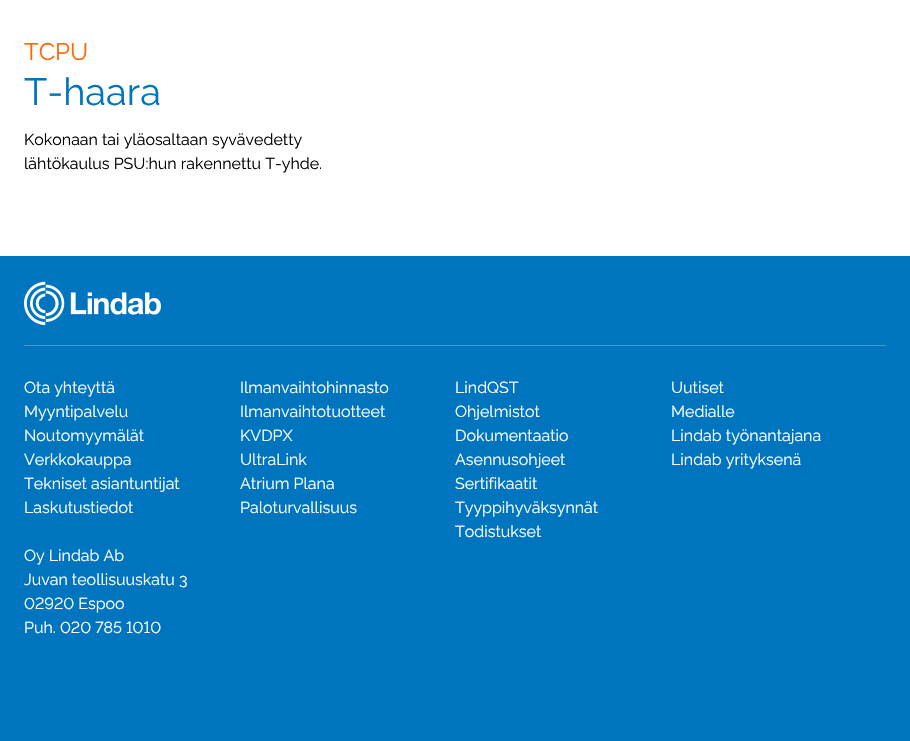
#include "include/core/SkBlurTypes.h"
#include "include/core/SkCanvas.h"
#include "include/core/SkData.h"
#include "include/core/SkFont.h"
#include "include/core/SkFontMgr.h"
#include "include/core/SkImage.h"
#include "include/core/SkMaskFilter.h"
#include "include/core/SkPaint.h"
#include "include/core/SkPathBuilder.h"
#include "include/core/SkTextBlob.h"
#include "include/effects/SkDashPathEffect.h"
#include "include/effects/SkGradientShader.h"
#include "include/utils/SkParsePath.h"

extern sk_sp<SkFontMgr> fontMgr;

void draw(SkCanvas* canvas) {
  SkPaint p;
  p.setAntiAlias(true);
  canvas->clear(SK_ColorWHITE);
  p.setColor(SkColorSetRGB(0, 117, 191));
  canvas->drawRect(SkRect::MakeLTRB(0, 256, 910, 741), p);
  canvas->drawImageRect(SkImages::DeferredFromEncodedData(SkData::MakeFromFileName("images/1.png")), SkRect::MakeLTRB(24, 281, 161, 326), SkSamplingOptions());
  p.setColor(SkColorSetRGB(64, 152, 207));
  canvas->drawRect(SkRect::MakeLTRB(24, 345, 886, 346), p);
  SkFont font1(fontMgr->matchFamilyStyle("Raleway", SkFontStyle(100, SkFontStyle::kNormal_Width, SkFontStyle::kUpright_Slant)), 24);
  font1.setSubpixel(true);
  p.setColor(SkColorSetRGB(255, 102, 0));
  canvas->drawString("TCPU", 24, 60, font1, p);
  SkFont font2(fontMgr->matchFamilyStyle("Raleway", SkFontStyle(100, SkFontStyle::kNormal_Width, SkFontStyle::kUpright_Slant)), 38);
  font2.setSubpixel(true);
  p.setColor(SkColorSetRGB(0, 117, 191));
  canvas->drawString("T-haara", 24, 105, font2, p);
  SkFont font3(fontMgr->matchFamilyStyle("Raleway", SkFontStyle(100, SkFontStyle::kNormal_Width, SkFontStyle::kUpright_Slant)), 16);
  font3.setSubpixel(true);
  p.setColor(SK_ColorBLACK);
  canvas->drawString("Kokonaan tai yläosaltaan syvävedetty", 24, 145, font3, p);
  canvas->drawString("lähtökaulus PSU:hun rakennettu T-yhde.", 24, 169, font3, p);
  p.setColor(SK_ColorWHITE);
  canvas->drawString("Ota yhteyttä", 24, 393, font3, p);
  canvas->drawString("Myyntipalvelu", 24, 417, font3, p);
  canvas->drawString("Noutomyymälät", 24, 441, font3, p);
  canvas->drawString("Verkkokauppa", 24, 465, font3, p);
  canvas->drawString("Tekniset asiantuntijat", 24, 489, font3, p);
  canvas->drawString("Laskutustiedot", 24, 513, font3, p);
  canvas->drawString("Oy Lindab Ab", 24, 561, font3, p);
  canvas->drawString("Juvan teollisuuskatu 3", 24, 585, font3, p);
  SkFont font4(fontMgr->matchFamilyStyle("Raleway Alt", SkFontStyle(100, SkFontStyle::kNormal_Width, SkFontStyle::kUpright_Slant)), 16);
  font4.setSubpixel(true);
  canvas->drawString("02920 Espoo", 24, 609, font4, p);
  canvas->drawString("Puh. 020 785 1010", 24, 633, font4, p);
  canvas->drawString("Ilmanvaihtohinnasto", 240, 393, font3, p);
  canvas->drawString("Ilmanvaihtotuotteet", 240, 417, font3, p);
  canvas->drawString("KVDPX", 240, 441, font3, p);
  canvas->drawString("UltraLink", 240, 465, font3, p);
  canvas->drawString("Atrium Plana", 240, 489, font3, p);
  canvas->drawString("Paloturvallisuus", 240, 513, font3, p);
  canvas->drawString("LindQST", 455, 393, font3, p);
  canvas->drawString("Ohjelmistot", 455, 417, font3, p);
  canvas->drawString("Dokumentaatio", 455, 441, font3, p);
  canvas->drawString("Asennusohjeet", 455, 465, font3, p);
  canvas->drawString("Sertifikaatit", 455, 489, font3, p);
  canvas->drawString("Tyyppihyväksynnät", 455, 513, font3, p);
  canvas->drawString("Todistukset", 455, 537, font3, p);
  canvas->drawString("Uutiset", 671, 393, font3, p);
  canvas->drawString("Medialle", 671, 417, font3, p);
  canvas->drawString("Lindab työnantajana", 671, 441, font3, p);
  canvas->drawString("Lindab yrityksenä", 671, 465, font3, p);
}
